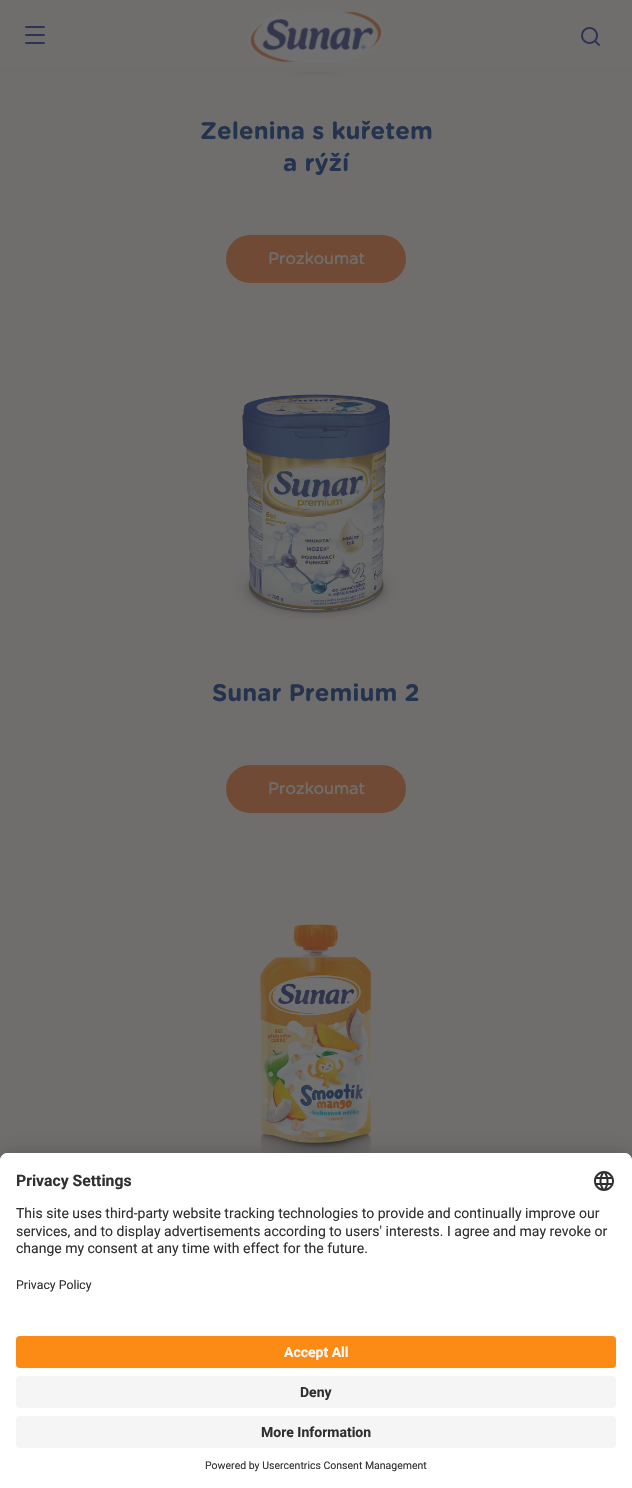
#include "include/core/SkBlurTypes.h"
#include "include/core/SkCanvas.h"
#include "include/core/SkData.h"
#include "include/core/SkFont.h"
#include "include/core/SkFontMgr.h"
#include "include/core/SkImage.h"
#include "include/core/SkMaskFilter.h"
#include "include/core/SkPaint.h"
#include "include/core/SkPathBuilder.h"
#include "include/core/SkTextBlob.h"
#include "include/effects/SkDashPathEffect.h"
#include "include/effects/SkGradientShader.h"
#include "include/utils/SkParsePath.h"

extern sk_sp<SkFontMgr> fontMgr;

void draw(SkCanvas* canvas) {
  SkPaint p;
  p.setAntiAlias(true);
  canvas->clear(SkColorSetRGB(112, 110, 109));
  p.setColor(SkColorSetRGB(112, 107, 103));
  canvas->drawRect(SkRect::MakeLTRB(0, 71, 632, 72), p);
  canvas->drawImageRect(SkImages::DeferredFromEncodedData(SkData::MakeFromFileName("images/1.png")), SkRect::MakeLTRB(248, 11, 384, 62), SkSamplingOptions());
  p.setColor(SkColorSetRGB(43, 52, 84));
  canvas->drawRoundRect(SkRect::MakeLTRB(25, 26, 45, 28), 1, 1, p);
  canvas->drawRoundRect(SkRect::MakeLTRB(25, 34, 45, 36), 1, 1, p);
  canvas->drawRoundRect(SkRect::MakeLTRB(25, 42, 45, 44), 1, 1, p);
  canvas->drawImageRect(SkImages::DeferredFromEncodedData(SkData::MakeFromFileName("images/2.png")), SkRect::MakeLTRB(581, 27, 600, 46), SkSamplingOptions());
  canvas->drawImageRect(SkImages::DeferredFromEncodedData(SkData::MakeFromFileName("images/3.png")), SkRect::MakeLTRB(287, 72, 344, 76), SkSamplingOptions());
  p.setColor(SkColorSetRGB(112, 74, 52));
  canvas->drawRoundRect(SkRect::MakeLTRB(227, 236, 405, 282), 23, 23, p);
  p.setStyle(SkPaint::kStroke_Style);
  p.setStrokeWidth(2);
  canvas->drawRoundRect(SkRect::MakeLTRB(227, 236, 405, 282), 23, 23, p);
  canvas->drawImageRect(SkImages::DeferredFromEncodedData(SkData::MakeFromFileName("images/4.png")), SkRect::MakeLTRB(232, 394, 398, 620), SkSamplingOptions());
  p.setStyle(SkPaint::kFill_Style);
  canvas->drawRoundRect(SkRect::MakeLTRB(227, 766, 405, 812), 23, 23, p);
  p.setStyle(SkPaint::kStroke_Style);
  canvas->drawRoundRect(SkRect::MakeLTRB(227, 766, 405, 812), 23, 23, p);
  canvas->drawImageRect(SkImages::DeferredFromEncodedData(SkData::MakeFromFileName("images/5.png")), SkRect::MakeLTRB(260, 924, 372, 1153), SkSamplingOptions());
  p.setStyle(SkPaint::kFill_Style);
  p.setColor(SkColorSetARGB(77, 0, 0, 0));
  p.setMaskFilter(SkMaskFilter::MakeBlur(kNormal_SkBlurStyle, 14));
  canvas->drawRoundRect(SkRect::MakeLTRB(0, 1173, 632, 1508), 8, 8, p);
  p.setMaskFilter(nullptr);
  p.setColor(SkColorSetARGB(56, 0, 0, 0));
  p.setMaskFilter(SkMaskFilter::MakeBlur(kNormal_SkBlurStyle, 13));
  canvas->drawRoundRect(SkRect::MakeLTRB(0, 1158, 632, 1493), 8, 8, p);
  p.setMaskFilter(nullptr);
  p.setColor(SK_ColorWHITE);
  canvas->drawPath(SkPathBuilder().moveTo(8, 1153).lineTo(624, 1153).cubicTo(628.5f, 1153, 632, 1156.5f, 632, 1161).lineTo(632, 1488).lineTo(0, 1488).lineTo(0, 1161).cubicTo(0, 1156.5f, 3.5f, 1153, 8, 1153).close().detach(), p);
  canvas->drawPath(SkPathBuilder().moveTo(8, 1153).lineTo(624, 1153).cubicTo(628.5f, 1153, 632, 1156.5f, 632, 1161).lineTo(632, 1324).lineTo(0, 1324).lineTo(0, 1161).cubicTo(0, 1156.5f, 3.5f, 1153, 8, 1153).close().detach(), p);
  canvas->drawImageRect(SkImages::DeferredFromEncodedData(SkData::MakeFromFileName("images/6.png")), SkRect::MakeLTRB(594, 1171, 614, 1191), SkSamplingOptions());
  p.setColor(SkColorSetRGB(251, 139, 20));
  canvas->drawRoundRect(SkRect::MakeLTRB(16, 1336, 616, 1368), 4, 4, p);
  p.setColor(SkColorSetRGB(245, 245, 245));
  canvas->drawRoundRect(SkRect::MakeLTRB(16, 1376, 616, 1408), 4, 4, p);
  canvas->drawRoundRect(SkRect::MakeLTRB(16, 1416, 616, 1448), 4, 4, p);
  SkFont font1(fontMgr->matchFamilyStyle("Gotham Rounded", SkFontStyle::Bold()), 24);
  font1.setSubpixel(true);
  p.setColor(SkColorSetRGB(36, 51, 78));
  canvas->drawString("Zelenina s kuřetem", 200, 139, font1, p);
  canvas->drawString("a rýží", 283, 171, font1, p);
  SkFont font2(fontMgr->matchFamilyStyle("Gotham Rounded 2", SkFontStyle::Bold()), 16);
  font2.setSubpixel(true);
  p.setColor(SkColorSetRGB(112, 110, 109));
  canvas->drawString("Prozkoumat", 268, 264, font2, p);
  p.setColor(SkColorSetRGB(36, 51, 78));
  canvas->drawString("Sunar Premium 2", 212, 701, font1, p);
  p.setColor(SkColorSetRGB(112, 110, 109));
  canvas->drawString("Prozkoumat", 268, 794, font2, p);
  SkFont font3(fontMgr->matchFamilyStyle("Roboto", SkFontStyle::Bold()), 15.75f);
  font3.setSubpixel(true);
  p.setColor(SkColorSetRGB(48, 48, 48));
  canvas->drawString("Privacy Settings", 16, 1186, font3, p);
  SkFont font4(fontMgr->matchFamilyStyle("Roboto", SkFontStyle::Normal()), 14);
  font4.setSubpixel(true);
  canvas->drawString("This site uses third-party website tracking technologies to provide and continually improve our", 16, 1218, font4, p);
  canvas->drawString("services, and to display advertisements according to users' interests. I agree and may revoke or", 16, 1236, font4, p);
  canvas->drawString("change my consent at any time with effect for the future.", 16, 1253, font4, p);
  SkFont font5(fontMgr->matchFamilyStyle("Roboto", SkFontStyle::Normal()), 12.25f);
  font5.setSubpixel(true);
  canvas->drawString("Privacy Policy", 16, 1289, font5, p);
  SkFont font6(fontMgr->matchFamilyStyle("Roboto", SkFontStyle::Bold()), 14);
  font6.setSubpixel(true);
  p.setColor(SkColorSetRGB(250, 250, 250));
  canvas->drawString("Accept All", 284, 1357, font6, p);
  p.setColor(SkColorSetRGB(48, 48, 48));
  canvas->drawString("Deny", 300, 1397, font6, p);
  canvas->drawString("More Information", 261, 1437, font6, p);
  SkFont font7(fontMgr->matchFamilyStyle("Roboto", SkFontStyle::Normal()), 10.5f);
  font7.setSubpixel(true);
  canvas->drawString("Powered by Usercentrics Consent Management", 205, 1469, font7, p);
}
